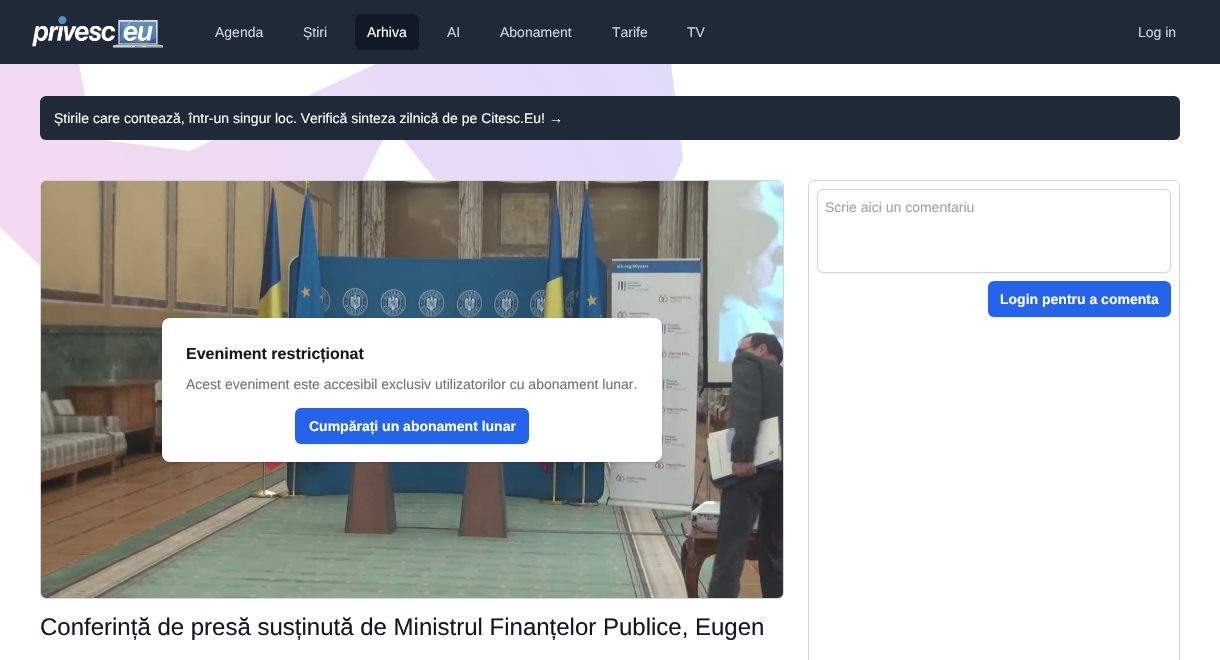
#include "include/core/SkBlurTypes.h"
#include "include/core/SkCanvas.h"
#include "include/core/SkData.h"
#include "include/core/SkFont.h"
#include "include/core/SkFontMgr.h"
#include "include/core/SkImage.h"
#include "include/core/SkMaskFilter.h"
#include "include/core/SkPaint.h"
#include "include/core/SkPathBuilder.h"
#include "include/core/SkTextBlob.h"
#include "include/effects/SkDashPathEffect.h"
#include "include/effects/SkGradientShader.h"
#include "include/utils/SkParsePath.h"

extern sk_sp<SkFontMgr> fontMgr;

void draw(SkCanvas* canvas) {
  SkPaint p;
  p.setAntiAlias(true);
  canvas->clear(SK_ColorWHITE);
  {
    const SkColor colors[] = {SkColorSetRGB(255, 217, 233), SkColorSetRGB(222, 220, 254)};
    const float stops[] = {0, 1};
    const SkPoint ends[] = {{-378, 308}, {638, -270}};
    p.setShader(SkGradientShader::MakeLinear(ends, colors, stops, 2, SkTileMode::kClamp));
    p.setAlpha(255);
  }
  canvas->drawPath(SkPathBuilder().moveTo(391, 124).lineTo(229, 450).lineTo(-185, 47).lineTo(-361, 127).lineTo(-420, -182).lineTo(-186, 46).lineTo(135, -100).lineTo(77, 53).lineTo(93, 139).lineTo(190, 151).lineTo(414, 46).lineTo(600, -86).lineTo(654, -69).lineTo(683, 158).lineTo(591, 376).close().detach(), p);
  p.setShader(nullptr);
  p.setColor(SkColorSetRGB(31, 41, 55));
  canvas->drawRect(SkRect::MakeLTRB(0, 0, 1220, 64), p);
  canvas->drawImageRect(SkImages::DeferredFromEncodedData(SkData::MakeFromFileName("images/1.png")), SkRect::MakeLTRB(32, 16, 163, 48), SkSamplingOptions());
  p.setColor(SkColorSetRGB(17, 24, 39));
  canvas->drawRoundRect(SkRect::MakeLTRB(355, 14, 419, 50), 6, 6, p);
  p.setColor(SkColorSetRGB(31, 41, 55));
  canvas->drawRoundRect(SkRect::MakeLTRB(40, 96, 1180, 140), 6, 6, p);
  p.setStyle(SkPaint::kStroke_Style);
  p.setStrokeWidth(1);
  p.setColor(SkColorSetRGB(209, 213, 219));
  canvas->drawRoundRect(SkRect::MakeLTRB(808.5f, 180.5f, 1179.5f, 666.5f), 5.5f, 5.5f, p);
  p.setStyle(SkPaint::kFill_Style);
  p.setColor(SkColorSetARGB(13, 0, 0, 0));
  p.setMaskFilter(SkMaskFilter::MakeBlur(kNormal_SkBlurStyle, 1));
  canvas->drawRoundRect(SkRect::MakeLTRB(817, 190, 1171, 274), 6, 6, p);
  p.setMaskFilter(nullptr);
  p.setColor(SK_ColorWHITE);
  canvas->drawRoundRect(SkRect::MakeLTRB(817.5f, 189.5f, 1170.5f, 272.5f), 5.5f, 5.5f, p);
  p.setStyle(SkPaint::kStroke_Style);
  p.setColor(SkColorSetRGB(209, 213, 219));
  canvas->drawRoundRect(SkRect::MakeLTRB(817.5f, 189.5f, 1170.5f, 272.5f), 5.5f, 5.5f, p);
  p.setStyle(SkPaint::kFill_Style);
  p.setColor(SkColorSetARGB(13, 0, 0, 0));
  p.setMaskFilter(SkMaskFilter::MakeBlur(kNormal_SkBlurStyle, 1));
  canvas->drawRoundRect(SkRect::MakeLTRB(988, 282, 1171, 318), 6, 6, p);
  p.setMaskFilter(nullptr);
  p.setColor(SkColorSetRGB(37, 99, 235));
  canvas->drawRoundRect(SkRect::MakeLTRB(988, 281, 1171, 317), 6, 6, p);
  p.setStyle(SkPaint::kStroke_Style);
  p.setColor(SkColorSetRGB(209, 213, 219));
  canvas->drawRoundRect(SkRect::MakeLTRB(40.5f, 180.5f, 783.5f, 598.5f), 5.5f, 5.5f, p);
  canvas->drawImageRect(SkImages::DeferredFromEncodedData(SkData::MakeFromFileName("images/2.png")), SkRect::MakeLTRB(41, 181, 783, 598), SkSamplingOptions());
  p.setStyle(SkPaint::kFill_Style);
  p.setColor(SkColorSetARGB(26, 0, 0, 0));
  p.setMaskFilter(SkMaskFilter::MakeBlur(kNormal_SkBlurStyle, 1));
  canvas->drawRoundRect(SkRect::MakeLTRB(163, 320, 661, 462), 7, 7, p);
  p.setMaskFilter(nullptr);
  p.setMaskFilter(SkMaskFilter::MakeBlur(kNormal_SkBlurStyle, 1.5f));
  canvas->drawRoundRect(SkRect::MakeLTRB(162, 319, 662, 463), 8, 8, p);
  p.setMaskFilter(nullptr);
  p.setColor(SK_ColorWHITE);
  canvas->drawRoundRect(SkRect::MakeLTRB(162, 318, 662, 462), 8, 8, p);
  p.setColor(SkColorSetARGB(13, 0, 0, 0));
  p.setMaskFilter(SkMaskFilter::MakeBlur(kNormal_SkBlurStyle, 1));
  canvas->drawRoundRect(SkRect::MakeLTRB(295, 409, 529, 445), 6, 6, p);
  p.setMaskFilter(nullptr);
  p.setColor(SkColorSetRGB(37, 99, 235));
  canvas->drawRoundRect(SkRect::MakeLTRB(295, 408, 529, 444), 6, 6, p);
  SkFont font1(fontMgr->matchFamilyStyle("Liberation Sans", SkFontStyle::Normal()), 14);
  font1.setSubpixel(true);
  p.setColor(SkColorSetRGB(209, 213, 219));
  canvas->drawString("Agenda", 215, 37, font1, p);
  canvas->drawString("Știri", 303, 37, font1, p);
  p.setColor(SK_ColorWHITE);
  canvas->drawString("Arhiva", 367, 37, font1, p);
  p.setColor(SkColorSetRGB(209, 213, 219));
  canvas->drawString("AI", 447, 37, font1, p);
  canvas->drawString("Abonament", 500, 37, font1, p);
  canvas->drawString("Tarife", 612, 37, font1, p);
  canvas->drawString("TV", 687, 37, font1, p);
  canvas->drawString("Log in", 1138, 37, font1, p);
  p.setColor(SK_ColorWHITE);
  canvas->drawString("Știrile care contează, într-un singur loc. Verifică sinteza zilnică de pe Citesc.Eu! →", 54, 123, font1, p);
  p.setColor(SkColorSetRGB(156, 163, 175));
  canvas->drawString("Scrie aici un comentariu", 825, 212, font1, p);
  SkFont font2(fontMgr->matchFamilyStyle("Liberation Sans", SkFontStyle::Bold()), 14);
  font2.setSubpixel(true);
  p.setColor(SK_ColorWHITE);
  canvas->drawString("Login pentru a comenta", 1000, 304, font2, p);
  SkFont font3(fontMgr->matchFamilyStyle("Liberation Sans", SkFontStyle::Bold()), 16);
  font3.setSubpixel(true);
  p.setColor(SkColorSetRGB(17, 24, 39));
  canvas->drawString("Eveniment restricționat", 186, 359, font3, p);
  p.setColor(SkColorSetRGB(107, 114, 128));
  canvas->drawString("Acest eveniment este accesibil exclusiv utilizatorilor cu abonament lunar.", 186, 389, font1, p);
  p.setColor(SK_ColorWHITE);
  canvas->drawString("Cumpărați un abonament lunar", 309, 431, font2, p);
  SkFont font4(fontMgr->matchFamilyStyle("Liberation Sans", SkFontStyle::Normal()), 24);
  font4.setSubpixel(true);
  p.setColor(SkColorSetRGB(17, 24, 39));
  canvas->drawString("Conferință de presă susținută de Ministrul Finanțelor Publice, Eugen", 40, 635, font4, p);
}
